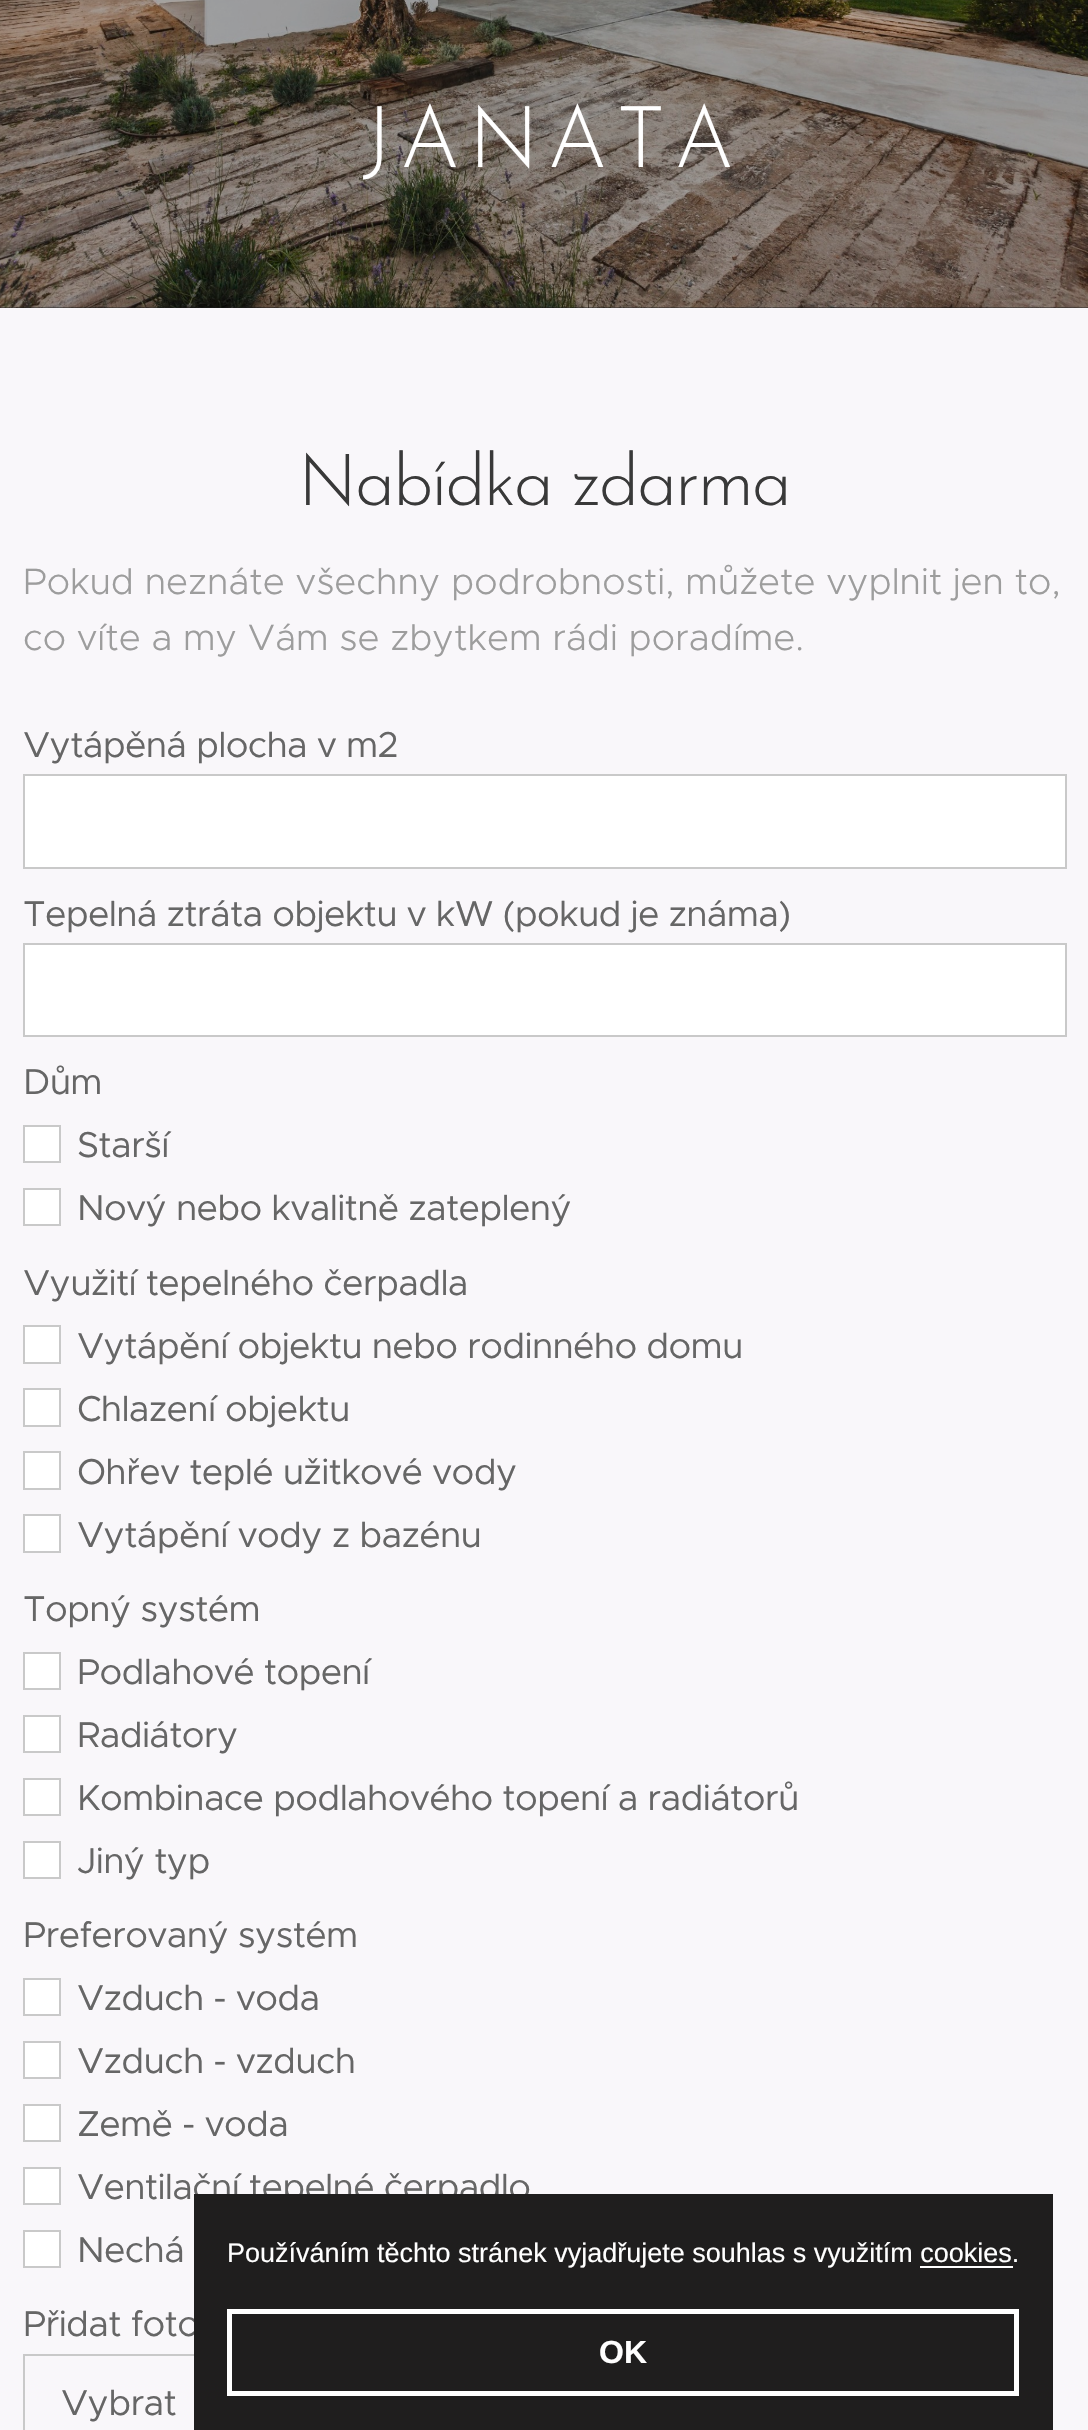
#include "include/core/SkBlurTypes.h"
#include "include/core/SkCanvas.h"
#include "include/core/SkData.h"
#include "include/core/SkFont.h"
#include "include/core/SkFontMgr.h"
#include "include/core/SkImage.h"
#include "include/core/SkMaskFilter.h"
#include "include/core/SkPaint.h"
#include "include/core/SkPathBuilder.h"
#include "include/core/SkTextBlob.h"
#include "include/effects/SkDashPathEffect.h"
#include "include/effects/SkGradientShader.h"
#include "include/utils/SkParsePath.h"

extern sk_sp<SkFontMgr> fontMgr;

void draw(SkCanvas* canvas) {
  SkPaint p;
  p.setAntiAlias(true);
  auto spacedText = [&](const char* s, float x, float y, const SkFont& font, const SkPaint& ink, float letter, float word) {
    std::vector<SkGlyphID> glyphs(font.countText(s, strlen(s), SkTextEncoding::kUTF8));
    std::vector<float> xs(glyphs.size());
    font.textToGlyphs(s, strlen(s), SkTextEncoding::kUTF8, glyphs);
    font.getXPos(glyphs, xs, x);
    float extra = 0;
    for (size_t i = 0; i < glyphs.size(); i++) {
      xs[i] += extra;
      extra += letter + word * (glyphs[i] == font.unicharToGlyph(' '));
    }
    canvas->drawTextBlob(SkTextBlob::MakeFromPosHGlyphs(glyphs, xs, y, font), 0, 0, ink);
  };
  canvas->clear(SkColorSetRGB(27, 27, 27));
  canvas->drawImageRect(SkImages::DeferredFromEncodedData(SkData::MakeFromFileName("images/1.png")), SkRect::MakeLTRB(0, 0, 1088, 308), SkSamplingOptions());
  p.setColor(SkColorSetRGB(249, 247, 250));
  canvas->drawRect(SkRect::MakeLTRB(0, 308, 1088, 2430), p);
  p.setColor(SK_ColorWHITE);
  canvas->drawRect(SkRect::MakeLTRB(24, 775, 1066, 868), p);
  p.setStyle(SkPaint::kStroke_Style);
  p.setStrokeWidth(2);
  p.setColor(SkColorSetRGB(201, 201, 201));
  canvas->drawRect(SkRect::MakeLTRB(24, 775, 1066, 868), p);
  p.setStyle(SkPaint::kFill_Style);
  p.setColor(SK_ColorWHITE);
  canvas->drawRect(SkRect::MakeLTRB(24, 944, 1066, 1036), p);
  p.setStyle(SkPaint::kStroke_Style);
  p.setColor(SkColorSetRGB(201, 201, 201));
  canvas->drawRect(SkRect::MakeLTRB(24, 944, 1066, 1036), p);
  p.setStyle(SkPaint::kFill_Style);
  p.setColor(SK_ColorWHITE);
  canvas->drawRect(SkRect::MakeLTRB(24, 1126, 60, 1162), p);
  p.setStyle(SkPaint::kStroke_Style);
  p.setColor(SkColorSetRGB(201, 201, 201));
  canvas->drawRect(SkRect::MakeLTRB(24, 1126, 60, 1162), p);
  p.setStyle(SkPaint::kFill_Style);
  p.setColor(SK_ColorWHITE);
  canvas->drawRect(SkRect::MakeLTRB(24, 1189, 60, 1225), p);
  p.setStyle(SkPaint::kStroke_Style);
  p.setColor(SkColorSetRGB(201, 201, 201));
  canvas->drawRect(SkRect::MakeLTRB(24, 1189, 60, 1225), p);
  p.setStyle(SkPaint::kFill_Style);
  p.setColor(SK_ColorWHITE);
  canvas->drawRect(SkRect::MakeLTRB(24, 1326, 60, 1363), p);
  p.setStyle(SkPaint::kStroke_Style);
  p.setColor(SkColorSetRGB(201, 201, 201));
  canvas->drawRect(SkRect::MakeLTRB(24, 1326, 60, 1363), p);
  p.setStyle(SkPaint::kFill_Style);
  p.setColor(SK_ColorWHITE);
  canvas->drawRect(SkRect::MakeLTRB(24, 1389, 60, 1426), p);
  p.setStyle(SkPaint::kStroke_Style);
  p.setColor(SkColorSetRGB(201, 201, 201));
  canvas->drawRect(SkRect::MakeLTRB(24, 1389, 60, 1426), p);
  p.setStyle(SkPaint::kFill_Style);
  p.setColor(SK_ColorWHITE);
  canvas->drawRect(SkRect::MakeLTRB(24, 1452, 60, 1489), p);
  p.setStyle(SkPaint::kStroke_Style);
  p.setColor(SkColorSetRGB(201, 201, 201));
  canvas->drawRect(SkRect::MakeLTRB(24, 1452, 60, 1489), p);
  p.setStyle(SkPaint::kFill_Style);
  p.setColor(SK_ColorWHITE);
  canvas->drawRect(SkRect::MakeLTRB(24, 1515, 60, 1552), p);
  p.setStyle(SkPaint::kStroke_Style);
  p.setColor(SkColorSetRGB(201, 201, 201));
  canvas->drawRect(SkRect::MakeLTRB(24, 1515, 60, 1552), p);
  p.setStyle(SkPaint::kFill_Style);
  p.setColor(SK_ColorWHITE);
  canvas->drawRect(SkRect::MakeLTRB(24, 1653, 60, 1689), p);
  p.setStyle(SkPaint::kStroke_Style);
  p.setColor(SkColorSetRGB(201, 201, 201));
  canvas->drawRect(SkRect::MakeLTRB(24, 1653, 60, 1689), p);
  p.setStyle(SkPaint::kFill_Style);
  p.setColor(SK_ColorWHITE);
  canvas->drawRect(SkRect::MakeLTRB(24, 1716, 60, 1752), p);
  p.setStyle(SkPaint::kStroke_Style);
  p.setColor(SkColorSetRGB(201, 201, 201));
  canvas->drawRect(SkRect::MakeLTRB(24, 1716, 60, 1752), p);
  p.setStyle(SkPaint::kFill_Style);
  p.setColor(SK_ColorWHITE);
  canvas->drawRect(SkRect::MakeLTRB(24, 1779, 60, 1815), p);
  p.setStyle(SkPaint::kStroke_Style);
  p.setColor(SkColorSetRGB(201, 201, 201));
  canvas->drawRect(SkRect::MakeLTRB(24, 1779, 60, 1815), p);
  p.setStyle(SkPaint::kFill_Style);
  p.setColor(SK_ColorWHITE);
  canvas->drawRect(SkRect::MakeLTRB(24, 1842, 60, 1878), p);
  p.setStyle(SkPaint::kStroke_Style);
  p.setColor(SkColorSetRGB(201, 201, 201));
  canvas->drawRect(SkRect::MakeLTRB(24, 1842, 60, 1878), p);
  p.setStyle(SkPaint::kFill_Style);
  p.setColor(SK_ColorWHITE);
  canvas->drawRect(SkRect::MakeLTRB(24, 1979, 60, 2015), p);
  p.setStyle(SkPaint::kStroke_Style);
  p.setColor(SkColorSetRGB(201, 201, 201));
  canvas->drawRect(SkRect::MakeLTRB(24, 1979, 60, 2015), p);
  p.setStyle(SkPaint::kFill_Style);
  p.setColor(SK_ColorWHITE);
  canvas->drawRect(SkRect::MakeLTRB(24, 2042, 60, 2078), p);
  p.setStyle(SkPaint::kStroke_Style);
  p.setColor(SkColorSetRGB(201, 201, 201));
  canvas->drawRect(SkRect::MakeLTRB(24, 2042, 60, 2078), p);
  p.setStyle(SkPaint::kFill_Style);
  p.setColor(SK_ColorWHITE);
  canvas->drawRect(SkRect::MakeLTRB(24, 2105, 60, 2141), p);
  p.setStyle(SkPaint::kStroke_Style);
  p.setColor(SkColorSetRGB(201, 201, 201));
  canvas->drawRect(SkRect::MakeLTRB(24, 2105, 60, 2141), p);
  p.setStyle(SkPaint::kFill_Style);
  p.setColor(SK_ColorWHITE);
  canvas->drawRect(SkRect::MakeLTRB(24, 2168, 60, 2204), p);
  p.setStyle(SkPaint::kStroke_Style);
  p.setColor(SkColorSetRGB(201, 201, 201));
  canvas->drawRect(SkRect::MakeLTRB(24, 2168, 60, 2204), p);
  p.setStyle(SkPaint::kFill_Style);
  p.setColor(SK_ColorWHITE);
  canvas->drawRect(SkRect::MakeLTRB(24, 2231, 60, 2267), p);
  p.setStyle(SkPaint::kStroke_Style);
  p.setColor(SkColorSetRGB(201, 201, 201));
  canvas->drawRect(SkRect::MakeLTRB(24, 2231, 60, 2267), p);
  canvas->drawRect(SkRect::MakeLTRB(24, 2355, 341, 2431), p);
  SkFont font1(fontMgr->matchFamilyStyle("Josefin Sans", SkFontStyle(300, SkFontStyle::kNormal_Width, SkFontStyle::kUpright_Slant)), 85.5f);
  font1.setSubpixel(true);
  p.setStyle(SkPaint::kFill_Style);
  p.setColor(SK_ColorWHITE);
  spacedText("JANATA", 363, 167, font1, p, 8.5f, 0);
  SkFont font2(fontMgr->matchFamilyStyle("Josefin Sans", SkFontStyle(300, SkFontStyle::kNormal_Width, SkFontStyle::kUpright_Slant)), 72);
  font2.setSubpixel(true);
  p.setColor(SkColorSetRGB(57, 57, 57));
  spacedText("Nabídka zdarma", 298, 505, font2, p, -2.2f, 0);
  SkFont font3(fontMgr->matchFamilyStyle("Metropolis", SkFontStyle(300, SkFontStyle::kNormal_Width, SkFontStyle::kUpright_Slant)), 36.9f);
  font3.setSubpixel(true);
  p.setColor(SkColorSetRGB(157, 157, 157));
  canvas->drawString("Pokud neznáte všechny podrobnosti, můžete vyplnit jen to,", 23, 594, font3, p);
  canvas->drawString("co víte a my Vám se zbytkem rádi poradíme.", 23, 650, font3, p);
  SkFont font4(fontMgr->matchFamilyStyle("Metropolis", SkFontStyle::Normal()), 36);
  font4.setSubpixel(true);
  p.setColor(SkColorSetRGB(102, 102, 102));
  spacedText("Vytápěná plocha v m2", 23, 757, font4, p, -0.7f, 0);
  spacedText("Tepelná ztráta objektu v kW (pokud je známa)", 23, 926, font4, p, -0.7f, 0);
  spacedText("Dům", 23, 1094, font4, p, -0.7f, 0);
  spacedText("Starší", 77, 1157, font4, p, -0.7f, 0);
  spacedText("Nový nebo kvalitně zateplený", 77, 1220, font4, p, -0.7f, 0);
  spacedText("Využití tepelného čerpadla", 23, 1295, font4, p, -0.7f, 0);
  spacedText("Vytápění objektu nebo rodinného domu", 77, 1358, font4, p, -0.7f, 0);
  spacedText("Chlazení objektu", 77, 1421, font4, p, -0.7f, 0);
  spacedText("Ohřev teplé užitkové vody", 77, 1484, font4, p, -0.7f, 0);
  spacedText("Vytápění vody z bazénu", 77, 1547, font4, p, -0.7f, 0);
  spacedText("Topný systém", 23, 1621, font4, p, -0.7f, 0);
  spacedText("Podlahové topení", 77, 1684, font4, p, -0.7f, 0);
  spacedText("Radiátory", 77, 1747, font4, p, -0.7f, 0);
  spacedText("Kombinace podlahového topení a radiátorů", 77, 1810, font4, p, -0.7f, 0);
  spacedText("Jiný typ", 77, 1873, font4, p, -0.7f, 0);
  spacedText("Preferovaný systém", 23, 1947, font4, p, -0.7f, 0);
  spacedText("Vzduch - voda", 77, 2010, font4, p, -0.7f, 0);
  spacedText("Vzduch - vzduch", 77, 2073, font4, p, -0.7f, 0);
  spacedText("Země - voda", 77, 2136, font4, p, -0.7f, 0);
  spacedText("Ventilační tepelné čerpadlo", 77, 2199, font4, p, -0.7f, 0);
  spacedText("Nechá", 77, 2262, font4, p, -0.7f, 0);
  spacedText("Přidat foto", 23, 2336, font4, p, -0.7f, 0);
  spacedText("Vybrat", 61, 2415, font4, p, -0.7f, 0);
  p.setColor(SkColorSetRGB(31, 30, 30));
  canvas->drawRect(SkRect::MakeLTRB(194, 2194, 1053, 2430), p);
  SkFont font5(fontMgr->matchFamilyStyle("Liberation Sans", SkFontStyle::Normal()), 27);
  font5.setSubpixel(true);
  p.setColor(SK_ColorWHITE);
  canvas->drawString("Používáním těchto stránek vyjadřujete souhlas s využitím cookies.", 227, 2262, font5, p);
  canvas->drawRect(SkRect::MakeLTRB(920, 2266, 1013, 2268), p);
  p.setStyle(SkPaint::kStroke_Style);
  p.setStrokeWidth(5);
  canvas->drawRect(SkRect::MakeLTRB(229.5f, 2311.5f, 1016.5f, 2393.5f), p);
  SkFont font6(fontMgr->matchFamilyStyle("Liberation Sans", SkFontStyle::Bold()), 32);
  font6.setSubpixel(true);
  p.setStyle(SkPaint::kFill_Style);
  canvas->drawString("OK", 599, 2363, font6, p);
}
